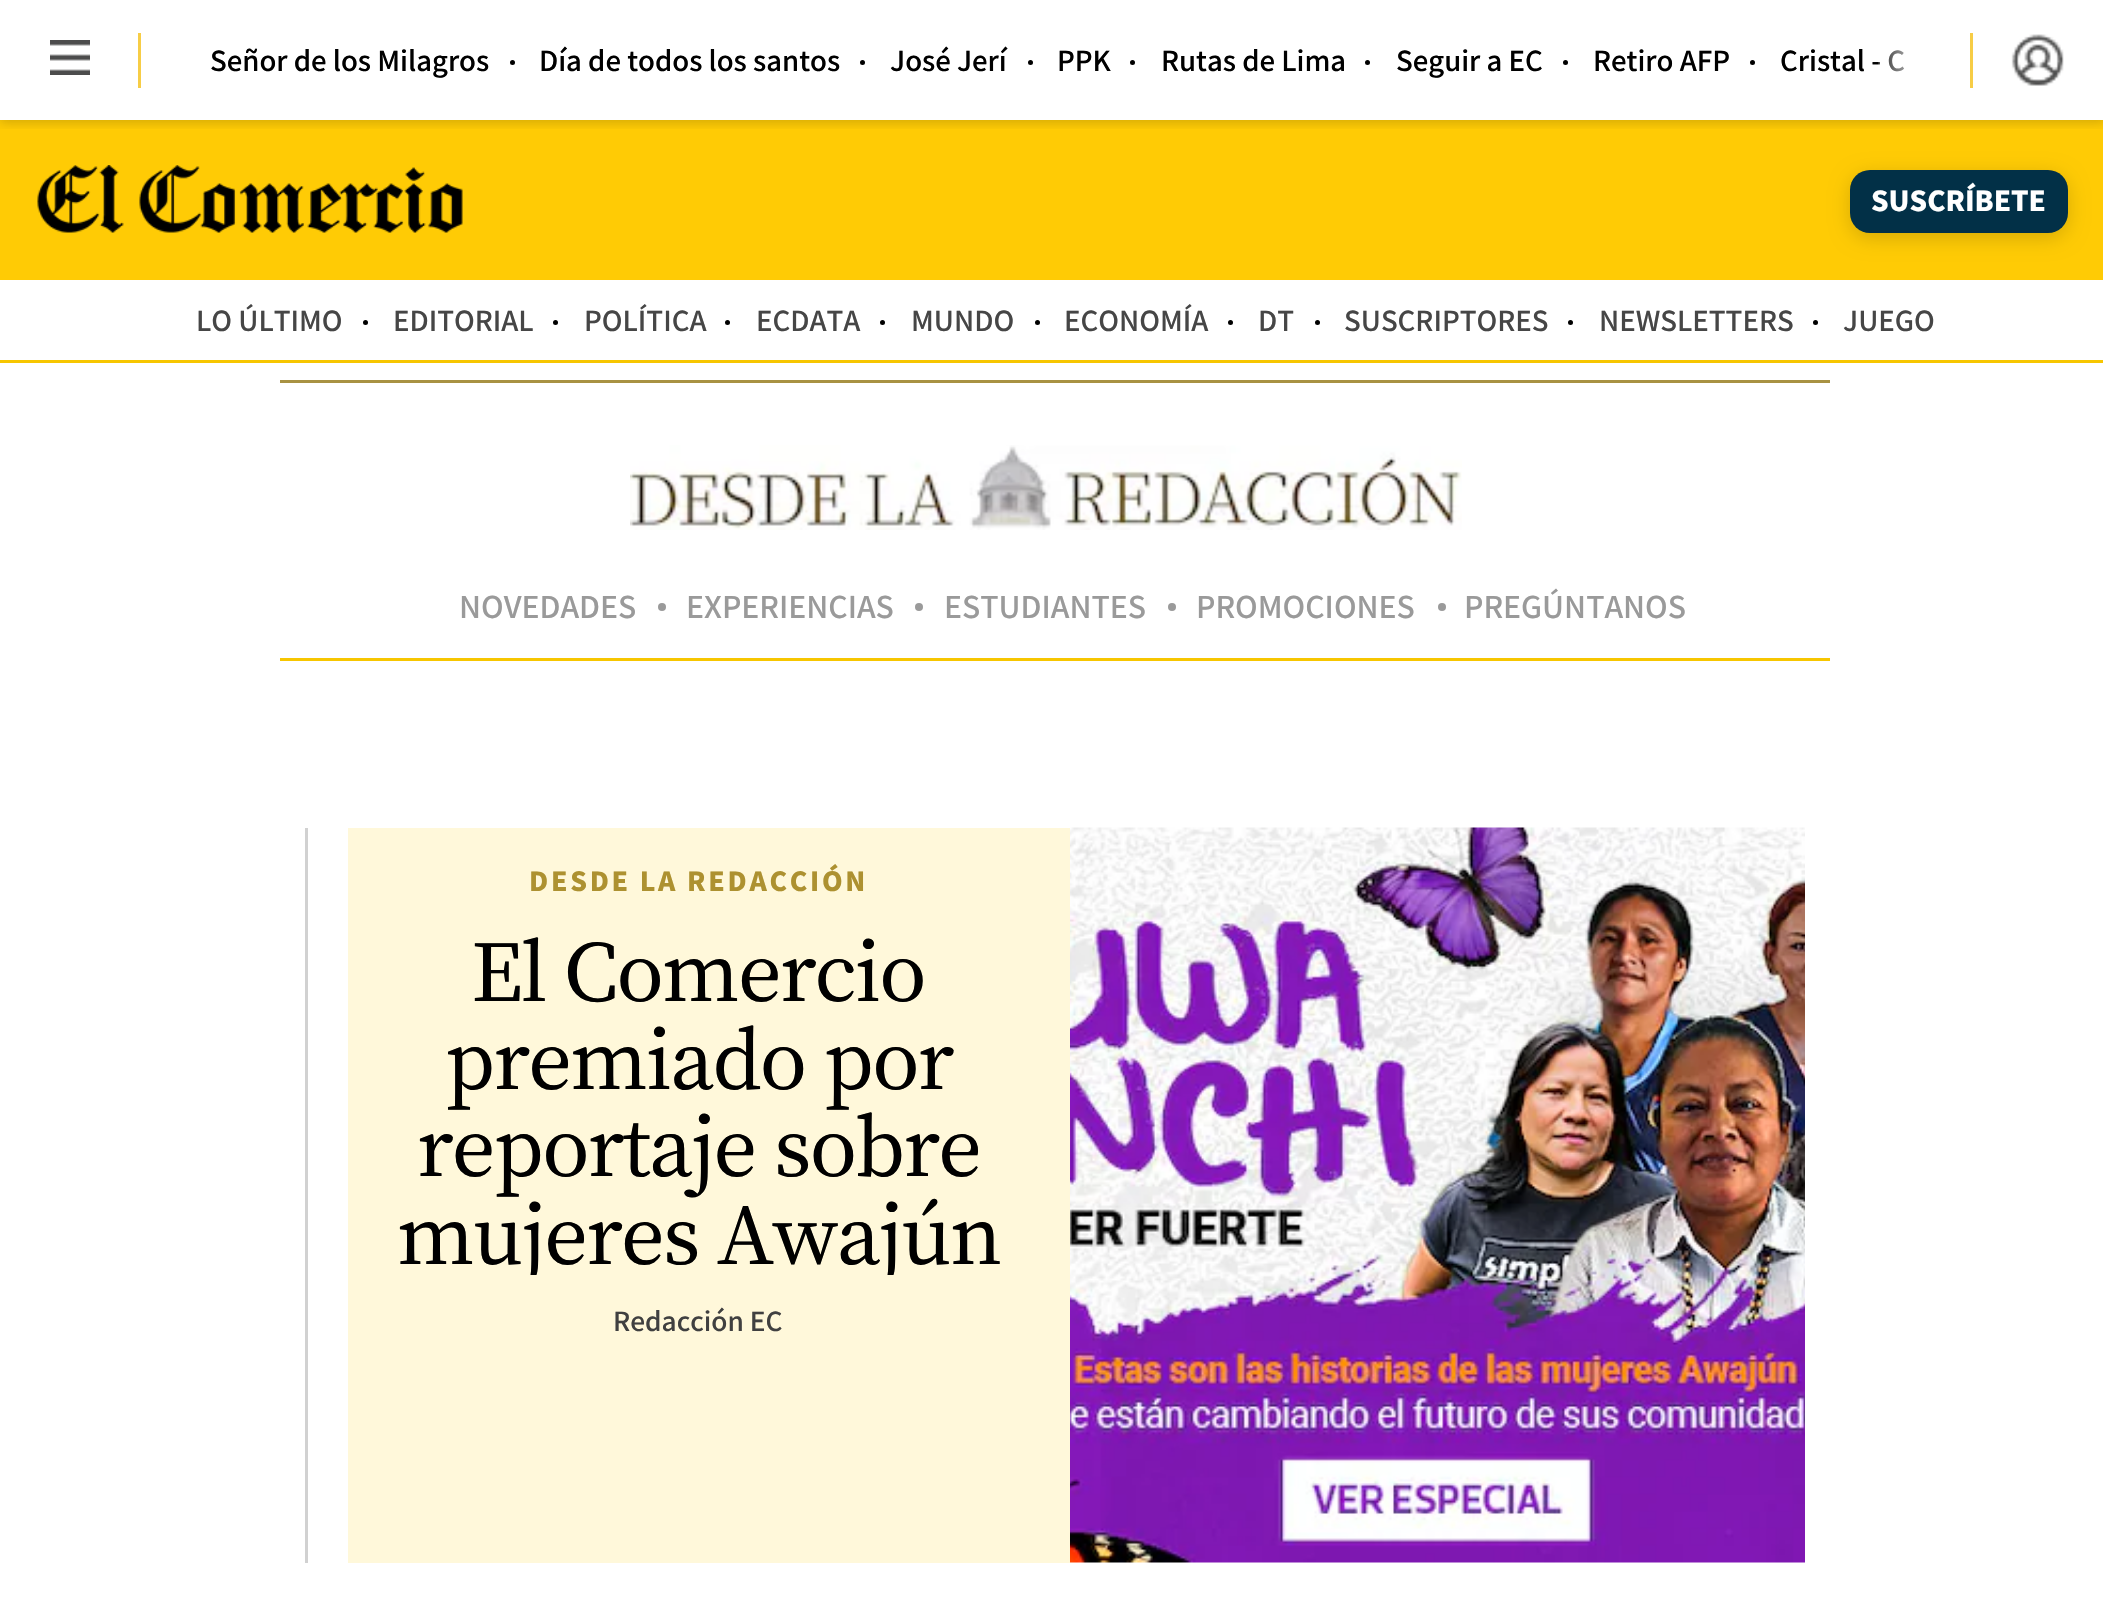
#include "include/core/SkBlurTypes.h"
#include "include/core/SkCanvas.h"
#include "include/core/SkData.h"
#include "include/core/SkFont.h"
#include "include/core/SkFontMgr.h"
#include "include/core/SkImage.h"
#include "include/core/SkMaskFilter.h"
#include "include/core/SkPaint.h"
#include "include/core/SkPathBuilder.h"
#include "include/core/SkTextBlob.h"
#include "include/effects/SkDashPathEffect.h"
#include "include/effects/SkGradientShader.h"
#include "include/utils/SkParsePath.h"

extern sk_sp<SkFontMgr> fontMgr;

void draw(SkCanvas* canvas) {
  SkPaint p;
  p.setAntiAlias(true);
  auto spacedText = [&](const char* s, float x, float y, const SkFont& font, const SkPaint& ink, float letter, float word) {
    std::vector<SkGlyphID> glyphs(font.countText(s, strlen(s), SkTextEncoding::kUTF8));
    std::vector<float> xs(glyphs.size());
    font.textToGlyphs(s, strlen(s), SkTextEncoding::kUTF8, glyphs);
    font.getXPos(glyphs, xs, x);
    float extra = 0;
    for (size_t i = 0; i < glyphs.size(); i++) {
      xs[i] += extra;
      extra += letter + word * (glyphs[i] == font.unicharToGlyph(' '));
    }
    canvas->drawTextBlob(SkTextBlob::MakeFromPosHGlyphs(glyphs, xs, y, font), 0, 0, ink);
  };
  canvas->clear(SK_ColorWHITE);
  p.setColor(SkColorSetRGB(255, 203, 5));
  canvas->drawRect(SkRect::MakeLTRB(0, 120, 2103, 280), p);
  canvas->save();
  canvas->clipRect(SkRect::MakeLTRB(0, 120, 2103, 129));
  p.setColor(SkColorSetARGB(41, 0, 0, 0));
  p.setMaskFilter(SkMaskFilter::MakeBlur(kNormal_SkBlurStyle, 5));
  canvas->drawRect(SkRect::MakeLTRB(0, 3, 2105, 123), p);
  p.setMaskFilter(nullptr);
  canvas->restore();
  canvas->drawImageRect(SkImages::DeferredFromEncodedData(SkData::MakeFromFileName("images/1.png")), SkRect::MakeLTRB(50, 40, 90, 75), SkSamplingOptions());
  p.setColor(SkColorSetRGB(247, 205, 70));
  canvas->drawRect(SkRect::MakeLTRB(138, 33, 141, 88), p);
  p.setColor(SK_ColorBLACK);
  canvas->drawCircle(512.5f, 62.5f, 2.5f, p);
  canvas->drawCircle(862.5f, 62.5f, 2.5f, p);
  canvas->drawCircle(1030.5f, 62.5f, 2.5f, p);
  canvas->drawCircle(1132.5f, 62.5f, 2.5f, p);
  canvas->drawCircle(1367.5f, 62.5f, 2.5f, p);
  canvas->drawCircle(1565.5f, 62.5f, 2.5f, p);
  canvas->drawCircle(1752.5f, 62.5f, 2.5f, p);
  p.setColor(SkColorSetRGB(247, 205, 70));
  canvas->drawRect(SkRect::MakeLTRB(1970, 33, 1973, 88), p);
  canvas->drawImageRect(SkImages::DeferredFromEncodedData(SkData::MakeFromFileName("images/2.png")), SkRect::MakeLTRB(2011, 34, 2064, 86), SkSamplingOptions());
  canvas->drawImageRect(SkImages::DeferredFromEncodedData(SkData::MakeFromFileName("images/3.png")), SkRect::MakeLTRB(37, 165, 463, 233), SkSamplingOptions());
  p.setColor(SkColorSetARGB(41, 0, 0, 0));
  p.setMaskFilter(SkMaskFilter::MakeBlur(kNormal_SkBlurStyle, 10));
  canvas->drawRoundRect(SkRect::MakeLTRB(1850, 175, 2068, 238), 20, 20, p);
  p.setMaskFilter(nullptr);
  p.setColor(SkColorSetRGB(2, 48, 71));
  canvas->drawRoundRect(SkRect::MakeLTRB(1850, 170, 2068, 233), 20, 20, p);
  p.setColor(SkColorSetRGB(247, 198, 0));
  canvas->drawRect(SkRect::MakeLTRB(0, 360, 2103, 363), p);
  p.setColor(SK_ColorBLACK);
  canvas->drawCircle(365.5f, 322.5f, 2.5f, p);
  canvas->drawCircle(555.5f, 322.5f, 2.5f, p);
  canvas->drawCircle(727.5f, 322.5f, 2.5f, p);
  canvas->drawCircle(882.5f, 322.5f, 2.5f, p);
  canvas->drawCircle(1037.5f, 322.5f, 2.5f, p);
  canvas->drawCircle(1230.5f, 322.5f, 2.5f, p);
  canvas->drawCircle(1317.5f, 322.5f, 2.5f, p);
  canvas->drawCircle(1570.5f, 322.5f, 2.5f, p);
  canvas->drawCircle(1815.5f, 322.5f, 2.5f, p);
  p.setColor(SkColorSetRGB(168, 146, 66));
  canvas->drawRect(SkRect::MakeLTRB(280, 380, 1830, 383), p);
  canvas->drawImageRect(SkImages::DeferredFromEncodedData(SkData::MakeFromFileName("images/4.png")), SkRect::MakeLTRB(630, 445, 1462, 530), SkSamplingOptions());
  p.setColor(SkColorSetRGB(247, 198, 0));
  canvas->drawRect(SkRect::MakeLTRB(280, 658, 1830, 661), p);
  p.setColor(SkColorSetRGB(154, 154, 154));
  canvas->drawCircle(662, 607, 4, p);
  canvas->drawCircle(919, 607, 4, p);
  canvas->drawCircle(1172, 607, 4, p);
  canvas->drawCircle(1442, 607, 4, p);
  p.setColor(SkColorSetRGB(209, 209, 209));
  canvas->drawRect(SkRect::MakeLTRB(305, 828, 308, 1563), p);
  p.setColor(SkColorSetRGB(255, 248, 218));
  canvas->drawRect(SkRect::MakeLTRB(348, 828, 1070, 1563), p);
  canvas->drawImageRect(SkImages::DeferredFromEncodedData(SkData::MakeFromFileName("images/5.png")), SkRect::MakeLTRB(1070, 827, 1805, 1563), SkSamplingOptions());
  SkFont font1(fontMgr->matchFamilyStyle("Noto Sans KR", SkFontStyle(500, SkFontStyle::kNormal_Width, SkFontStyle::kUpright_Slant)), 27.5f);
  font1.setSubpixel(true);
  p.setColor(SK_ColorBLACK);
  canvas->drawString("Señor de los Milagros", 210, 71, font1, p);
  canvas->drawString("Día de todos los santos", 539, 71, font1, p);
  canvas->drawString("José Jerí", 890, 71, font1, p);
  canvas->drawString("PPK", 1057, 71, font1, p);
  canvas->drawString("Rutas de Lima", 1161, 71, font1, p);
  canvas->drawString("Seguir a EC", 1396, 71, font1, p);
  canvas->drawString("Retiro AFP", 1593, 71, font1, p);
  canvas->drawString("Cristal - C", 1780, 71, font1, p);
  {
    const SkColor colors[] = {SkColorSetARGB(38, 255, 255, 255), SK_ColorWHITE};
    const float stops[] = {0, 1};
    const SkPoint ends[] = {{1878, 61}, {1928, 61}};
    p.setShader(SkGradientShader::MakeLinear(ends, colors, stops, 2, SkTileMode::kClamp));
    p.setAlpha(255);
  }
  canvas->drawRect(SkRect::MakeLTRB(1878, 50, 1905, 72), p);
  SkFont font2(fontMgr->matchFamilyStyle("Noto Sans KR", SkFontStyle(900, SkFontStyle::kNormal_Width, SkFontStyle::kUpright_Slant)), 27.5f);
  font2.setSubpixel(true);
  p.setShader(nullptr);
  p.setColor(SK_ColorWHITE);
  canvas->drawString("SUSCRÍBETE", 1871, 211, font2, p);
  p.setColor(SkColorSetRGB(70, 70, 70));
  canvas->drawString("LO ÚLTIMO", 196, 331, font1, p);
  canvas->drawString("EDITORIAL", 393, 331, font1, p);
  canvas->drawString("POLÍTICA", 584, 331, font1, p);
  canvas->drawString("ECDATA", 756, 331, font1, p);
  canvas->drawString("MUNDO", 911, 331, font1, p);
  canvas->drawString("ECONOMÍA", 1064, 331, font1, p);
  canvas->drawString("DT", 1258, 331, font1, p);
  canvas->drawString("SUSCRIPTORES", 1344, 331, font1, p);
  canvas->drawString("NEWSLETTERS", 1599, 331, font1, p);
  canvas->drawString("JUEGO", 1843, 331, font1, p);
  SkFont font3(fontMgr->matchFamilyStyle("Noto Sans KR", SkFontStyle(500, SkFontStyle::kNormal_Width, SkFontStyle::kUpright_Slant)), 30);
  font3.setSubpixel(true);
  p.setColor(SkColorSetRGB(154, 154, 154));
  canvas->drawString("NOVEDADES", 459, 618, font3, p);
  canvas->drawString("EXPERIENCIAS", 686, 618, font3, p);
  canvas->drawString("ESTUDIANTES", 944, 618, font3, p);
  canvas->drawString("PROMOCIONES", 1196, 618, font3, p);
  canvas->drawString("PREGÚNTANOS", 1464, 618, font3, p);
  SkFont font4(fontMgr->matchFamilyStyle("Noto Sans KR", SkFontStyle(900, SkFontStyle::kNormal_Width, SkFontStyle::kUpright_Slant)), 26.25f);
  font4.setSubpixel(true);
  p.setColor(SkColorSetRGB(173, 145, 48));
  spacedText("DESDE LA REDACCIÓN", 529, 891, font4, p, 2.75f, 0);
  SkFont font5(fontMgr->matchFamilyStyle("Noto Serif KR", SkFontStyle(500, SkFontStyle::kNormal_Width, SkFontStyle::kUpright_Slant)), 78.75f);
  font5.setSubpixel(true);
  p.setColor(SK_ColorBLACK);
  spacedText("El Comercio", 471, 1001, font5, p, -1.75f, 0);
  spacedText("premiado por", 445, 1089, font5, p, -1.75f, 0);
  spacedText("reportaje sobre", 417, 1176, font5, p, -1.75f, 0);
  canvas->save();
  canvas->clipRect(SkRect::MakeLTRB(388, 925, 1010, 1275));
  spacedText("mujeres Awajún", 397, 1264, font5, p, -1.75f, 0);
  canvas->restore();
  SkFont font6(fontMgr->matchFamilyStyle("Noto Sans KR", SkFontStyle(500, SkFontStyle::kNormal_Width, SkFontStyle::kUpright_Slant)), 26.25f);
  font6.setSubpixel(true);
  p.setColor(SkColorSetRGB(64, 64, 64));
  canvas->drawString("Redacción EC", 613, 1331, font6, p);
}
